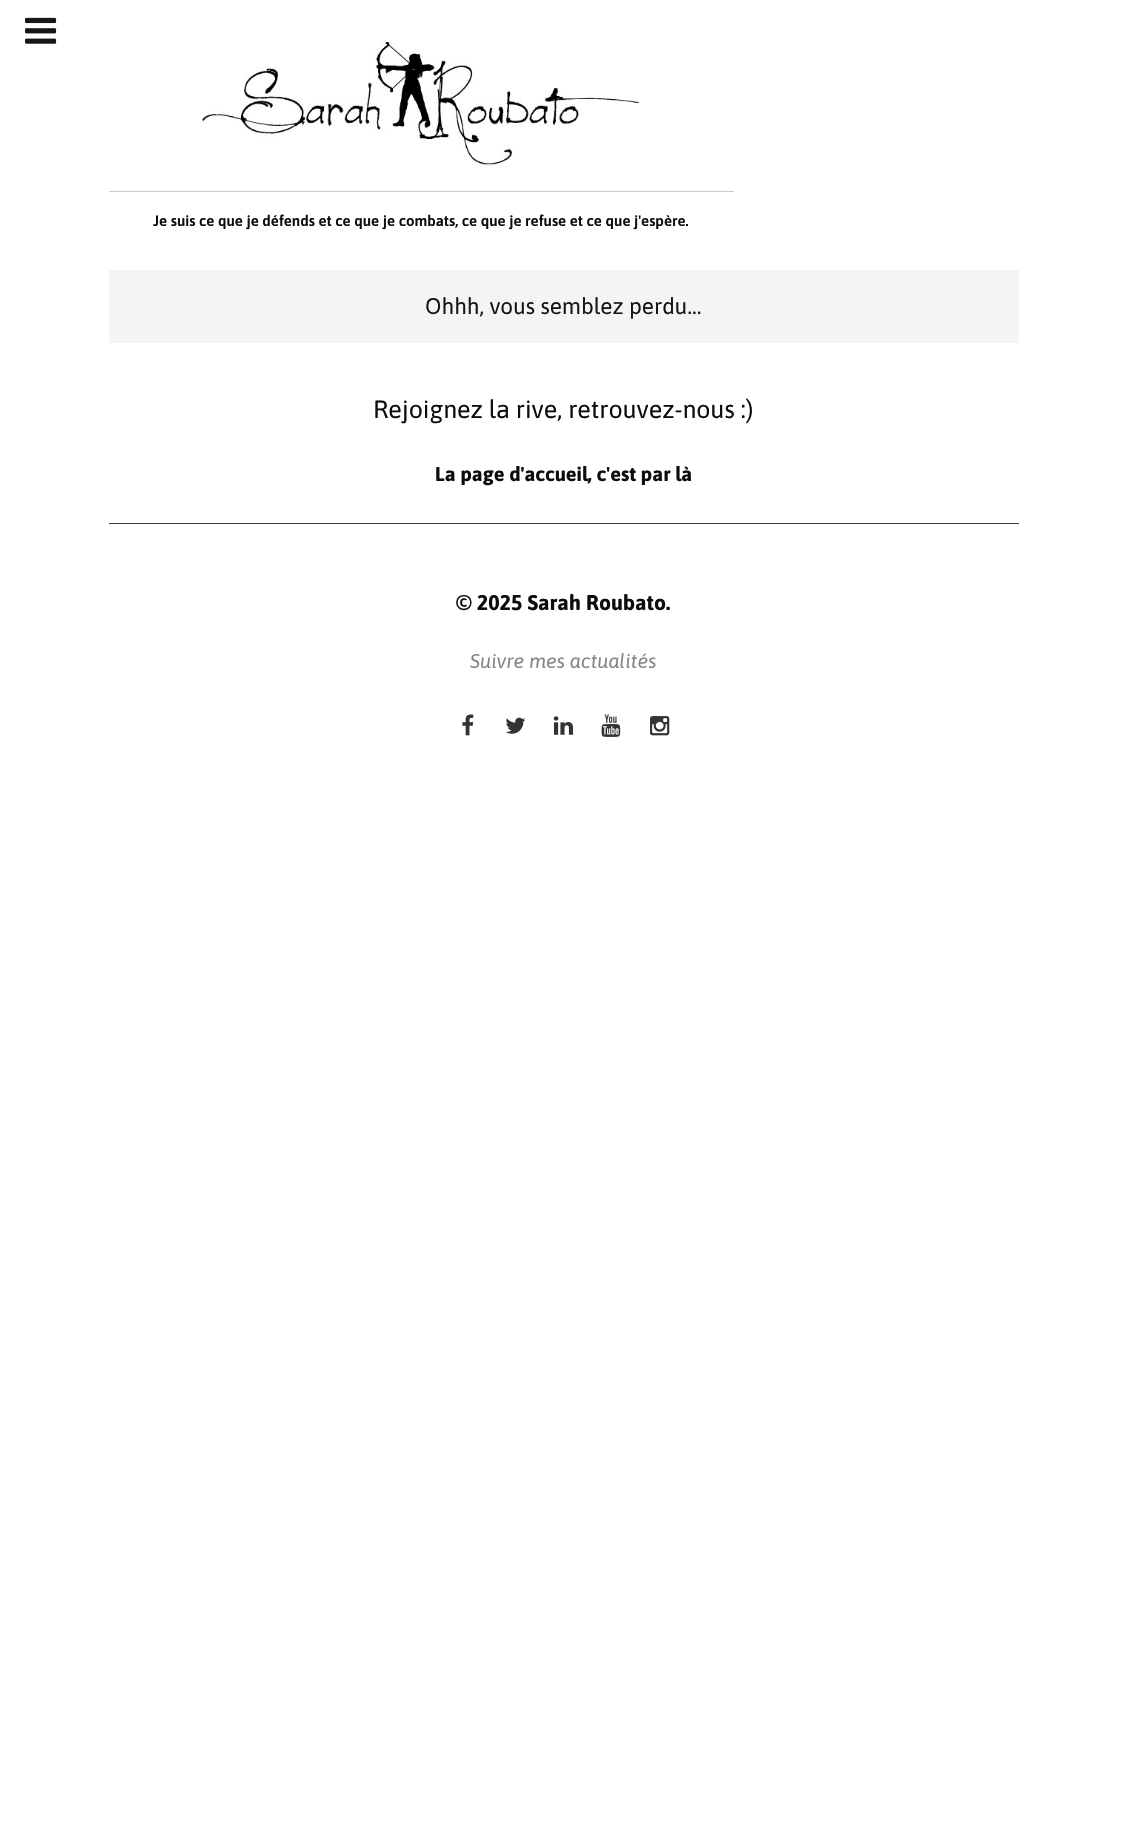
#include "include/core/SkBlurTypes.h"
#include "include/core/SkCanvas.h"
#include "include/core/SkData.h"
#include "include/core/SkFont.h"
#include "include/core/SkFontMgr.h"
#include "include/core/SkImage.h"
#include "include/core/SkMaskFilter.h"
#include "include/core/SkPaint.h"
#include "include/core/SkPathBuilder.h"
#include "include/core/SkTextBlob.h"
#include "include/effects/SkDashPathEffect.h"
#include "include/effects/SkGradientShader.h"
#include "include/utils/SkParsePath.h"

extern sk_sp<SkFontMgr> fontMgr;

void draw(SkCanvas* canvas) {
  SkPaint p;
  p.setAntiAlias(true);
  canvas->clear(SK_ColorWHITE);
  canvas->drawImageRect(SkImages::DeferredFromEncodedData(SkData::MakeFromFileName("images/1.png")), SkRect::MakeLTRB(25, 17, 57, 44), SkSamplingOptions());
  canvas->drawImageRect(SkImages::DeferredFromEncodedData(SkData::MakeFromFileName("images/2.png")), SkRect::MakeLTRB(202, 41, 639, 167), SkSamplingOptions());
  p.setColor(SkColorSetRGB(204, 204, 204));
  canvas->drawRect(SkRect::MakeLTRB(109, 191, 734, 192), p);
  p.setColor(SkColorSetRGB(244, 244, 244));
  canvas->drawRect(SkRect::MakeLTRB(109, 270, 1019, 343), p);
  p.setColor(SkColorSetRGB(61, 62, 64));
  canvas->drawRect(SkRect::MakeLTRB(109, 523, 1019, 524), p);
  canvas->drawImageRect(SkImages::DeferredFromEncodedData(SkData::MakeFromFileName("images/3.png")), SkRect::MakeLTRB(462, 714, 474, 736), SkSamplingOptions());
  canvas->drawImageRect(SkImages::DeferredFromEncodedData(SkData::MakeFromFileName("images/4.png")), SkRect::MakeLTRB(505, 717, 526, 734), SkSamplingOptions());
  canvas->drawImageRect(SkImages::DeferredFromEncodedData(SkData::MakeFromFileName("images/5.png")), SkRect::MakeLTRB(553, 716, 574, 735), SkSamplingOptions());
  canvas->drawImageRect(SkImages::DeferredFromEncodedData(SkData::MakeFromFileName("images/6.png")), SkRect::MakeLTRB(601, 714, 621, 737), SkSamplingOptions());
  canvas->drawImageRect(SkImages::DeferredFromEncodedData(SkData::MakeFromFileName("images/7.png")), SkRect::MakeLTRB(650, 716, 670, 736), SkSamplingOptions());
  SkFont font1(fontMgr->matchFamilyStyle("Asap", SkFontStyle(600, SkFontStyle::kNormal_Width, SkFontStyle::kUpright_Slant)), 15);
  font1.setSubpixel(true);
  p.setColor(SkColorSetRGB(13, 13, 13));
  canvas->drawString("Je suis ce que je défends et ce que je combats, ce que je refuse et ce que j'espère.", 153, 226, font1, p);
  SkFont font2(fontMgr->matchFamilyStyle("Asap", SkFontStyle::Normal()), 22.5f);
  font2.setSubpixel(true);
  p.setColor(SkColorSetRGB(23, 22, 23));
  canvas->drawString("Ohhh, vous semblez perdu…", 425, 314, font2, p);
  SkFont font3(fontMgr->matchFamilyStyle("Asap", SkFontStyle::Normal()), 25);
  font3.setSubpixel(true);
  p.setColor(SkColorSetRGB(13, 13, 13));
  canvas->drawString("Rejoignez la rive, retrouvez-nous :)", 373, 418, font3, p);
  SkFont font4(fontMgr->matchFamilyStyle("Asap", SkFontStyle::Bold()), 20);
  font4.setSubpixel(true);
  canvas->drawString("La page d'accueil, c'est par là", 435, 481, font4, p);
  SkFont font5(fontMgr->matchFamilyStyle("Asap", SkFontStyle::Bold()), 21.25f);
  font5.setSubpixel(true);
  canvas->drawString("© 2025 Sarah Roubato.", 456, 610, font5, p);
  SkFont font6(fontMgr->matchFamilyStyle("Asap", SkFontStyle::Italic()), 20);
  font6.setSubpixel(true);
  p.setColor(SkColorSetRGB(134, 134, 134));
  canvas->drawString("Suivre mes actualités", 470, 668, font6, p);
}
